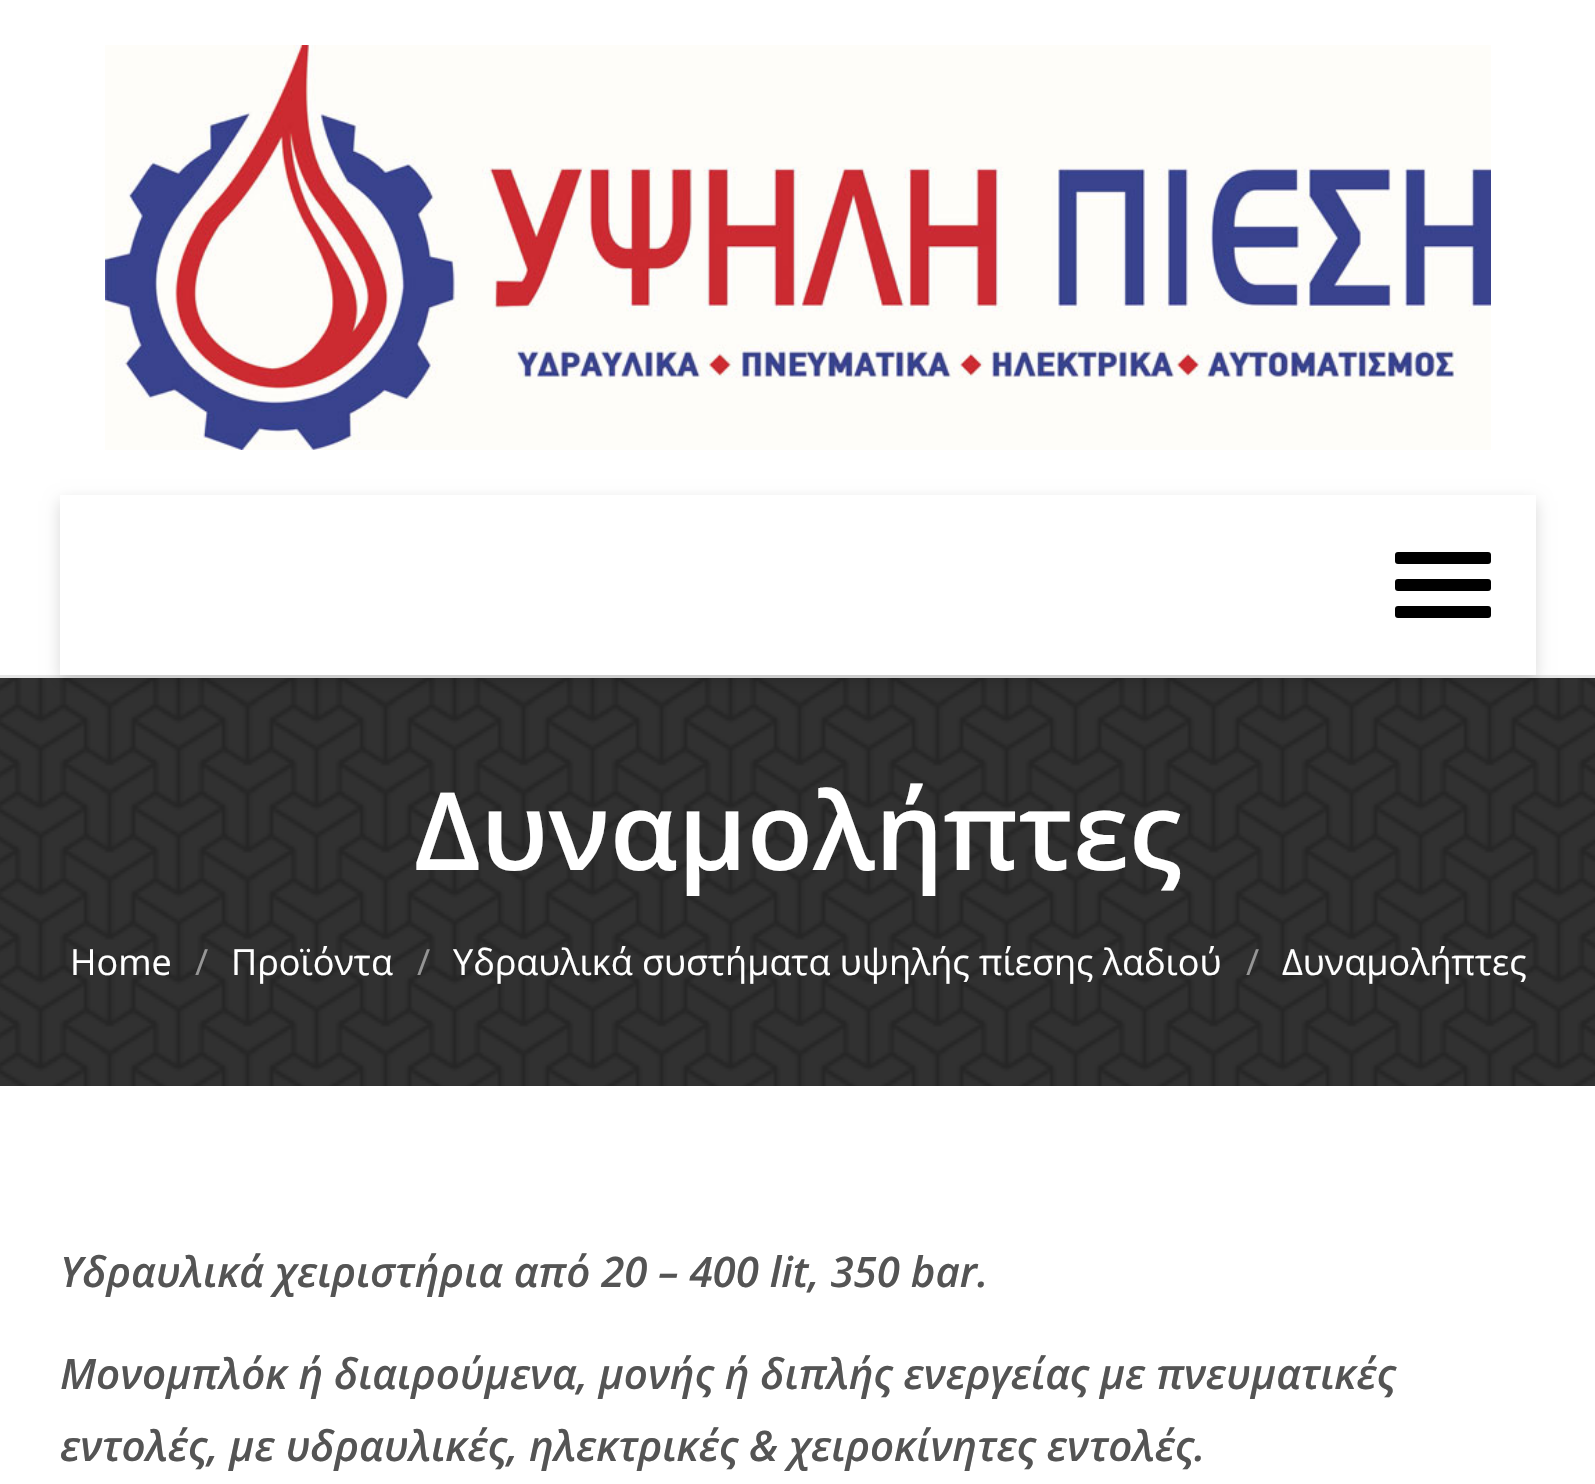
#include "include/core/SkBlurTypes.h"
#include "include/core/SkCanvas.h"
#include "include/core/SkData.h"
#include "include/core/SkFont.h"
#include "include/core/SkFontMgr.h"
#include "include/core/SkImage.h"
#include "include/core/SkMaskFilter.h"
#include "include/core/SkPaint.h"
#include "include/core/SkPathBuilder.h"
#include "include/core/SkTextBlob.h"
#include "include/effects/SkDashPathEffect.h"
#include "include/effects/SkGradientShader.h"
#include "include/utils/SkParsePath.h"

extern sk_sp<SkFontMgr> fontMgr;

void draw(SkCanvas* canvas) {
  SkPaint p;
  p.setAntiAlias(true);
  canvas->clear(SK_ColorWHITE);
  p.setColor(SkColorSetRGB(229, 229, 229));
  canvas->drawRect(SkRect::MakeLTRB(0, 675, 1595, 678), p);
  canvas->drawImageRect(SkImages::DeferredFromEncodedData(SkData::MakeFromFileName("images/1.png")), SkRect::MakeLTRB(105, 45, 1491, 450), SkSamplingOptions());
  canvas->drawImageRect(SkImages::DeferredFromEncodedData(SkData::MakeFromFileName("images/2.png")), SkRect::MakeLTRB(0, 678, 1595, 1086), SkSamplingOptions());
  canvas->save();
  canvas->clipPath(SkPathBuilder(SkPathFillType::kEvenOdd).moveTo(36, 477).lineTo(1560, 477).lineTo(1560, 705).lineTo(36, 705).close().moveTo(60, 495).lineTo(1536, 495).lineTo(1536, 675).lineTo(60, 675).close().detach(), true);
  p.setColor(SkColorSetARGB(38, 0, 0, 0));
  p.setMaskFilter(SkMaskFilter::MakeBlur(kNormal_SkBlurStyle, 7.5f));
  canvas->drawRect(SkRect::MakeLTRB(60, 501, 1536, 681), p);
  p.setMaskFilter(nullptr);
  canvas->restore();
  p.setColor(SK_ColorBLACK);
  canvas->drawRoundRect(SkRect::MakeLTRB(1395, 552, 1491, 564), 3, 3, p);
  canvas->drawRoundRect(SkRect::MakeLTRB(1395, 579, 1491, 591), 3, 3, p);
  canvas->drawRoundRect(SkRect::MakeLTRB(1395, 606, 1491, 618), 3, 3, p);
  SkFont font1(fontMgr->matchFamilyStyle("Open Sans", SkFontStyle(600, SkFontStyle::kNormal_Width, SkFontStyle::kUpright_Slant)), 108);
  font1.setSubpixel(true);
  p.setColor(SK_ColorWHITE);
  canvas->drawString("Δυναμολήπτες", 414, 870, font1, p);
  SkFont font2(fontMgr->matchFamilyStyle("Open Sans", SkFontStyle::Normal()), 36);
  font2.setSubpixel(true);
  canvas->drawString("Home", 70, 975, font2, p);
  p.setColor(SkColorSetRGB(150, 150, 150));
  canvas->drawString("/", 195, 975, font2, p);
  p.setColor(SK_ColorWHITE);
  canvas->drawString("Προϊόντα", 231, 975, font2, p);
  p.setColor(SkColorSetRGB(150, 150, 150));
  canvas->drawString("/", 417, 975, font2, p);
  p.setColor(SK_ColorWHITE);
  canvas->drawString("Υδραυλικά συστήματα υψηλής πίεσης λαδιού", 453, 975, font2, p);
  p.setColor(SkColorSetRGB(150, 150, 150));
  canvas->drawString("/", 1246, 975, font2, p);
  p.setColor(SK_ColorWHITE);
  canvas->drawString("Δυναμολήπτες", 1282, 975, font2, p);
  SkFont font3(fontMgr->matchFamilyStyle("Open Sans", SkFontStyle(600, SkFontStyle::kNormal_Width, SkFontStyle::kItalic_Slant)), 42);
  font3.setSubpixel(true);
  p.setColor(SkColorSetRGB(84, 84, 84));
  canvas->drawString("Υδραυλικά χειριστήρια από 20 – 400 lit, 350 bar.", 60, 1287, font3, p);
  canvas->drawString("Mονομπλόκ ή διαιρούμενα, μονής ή διπλής ενεργείας με πνευματικές", 60, 1389, font3, p);
  canvas->drawString("εντολές, με υδραυλικές, ηλεκτρικές & χειροκίνητες εντολές.", 60, 1461, font3, p);
}
